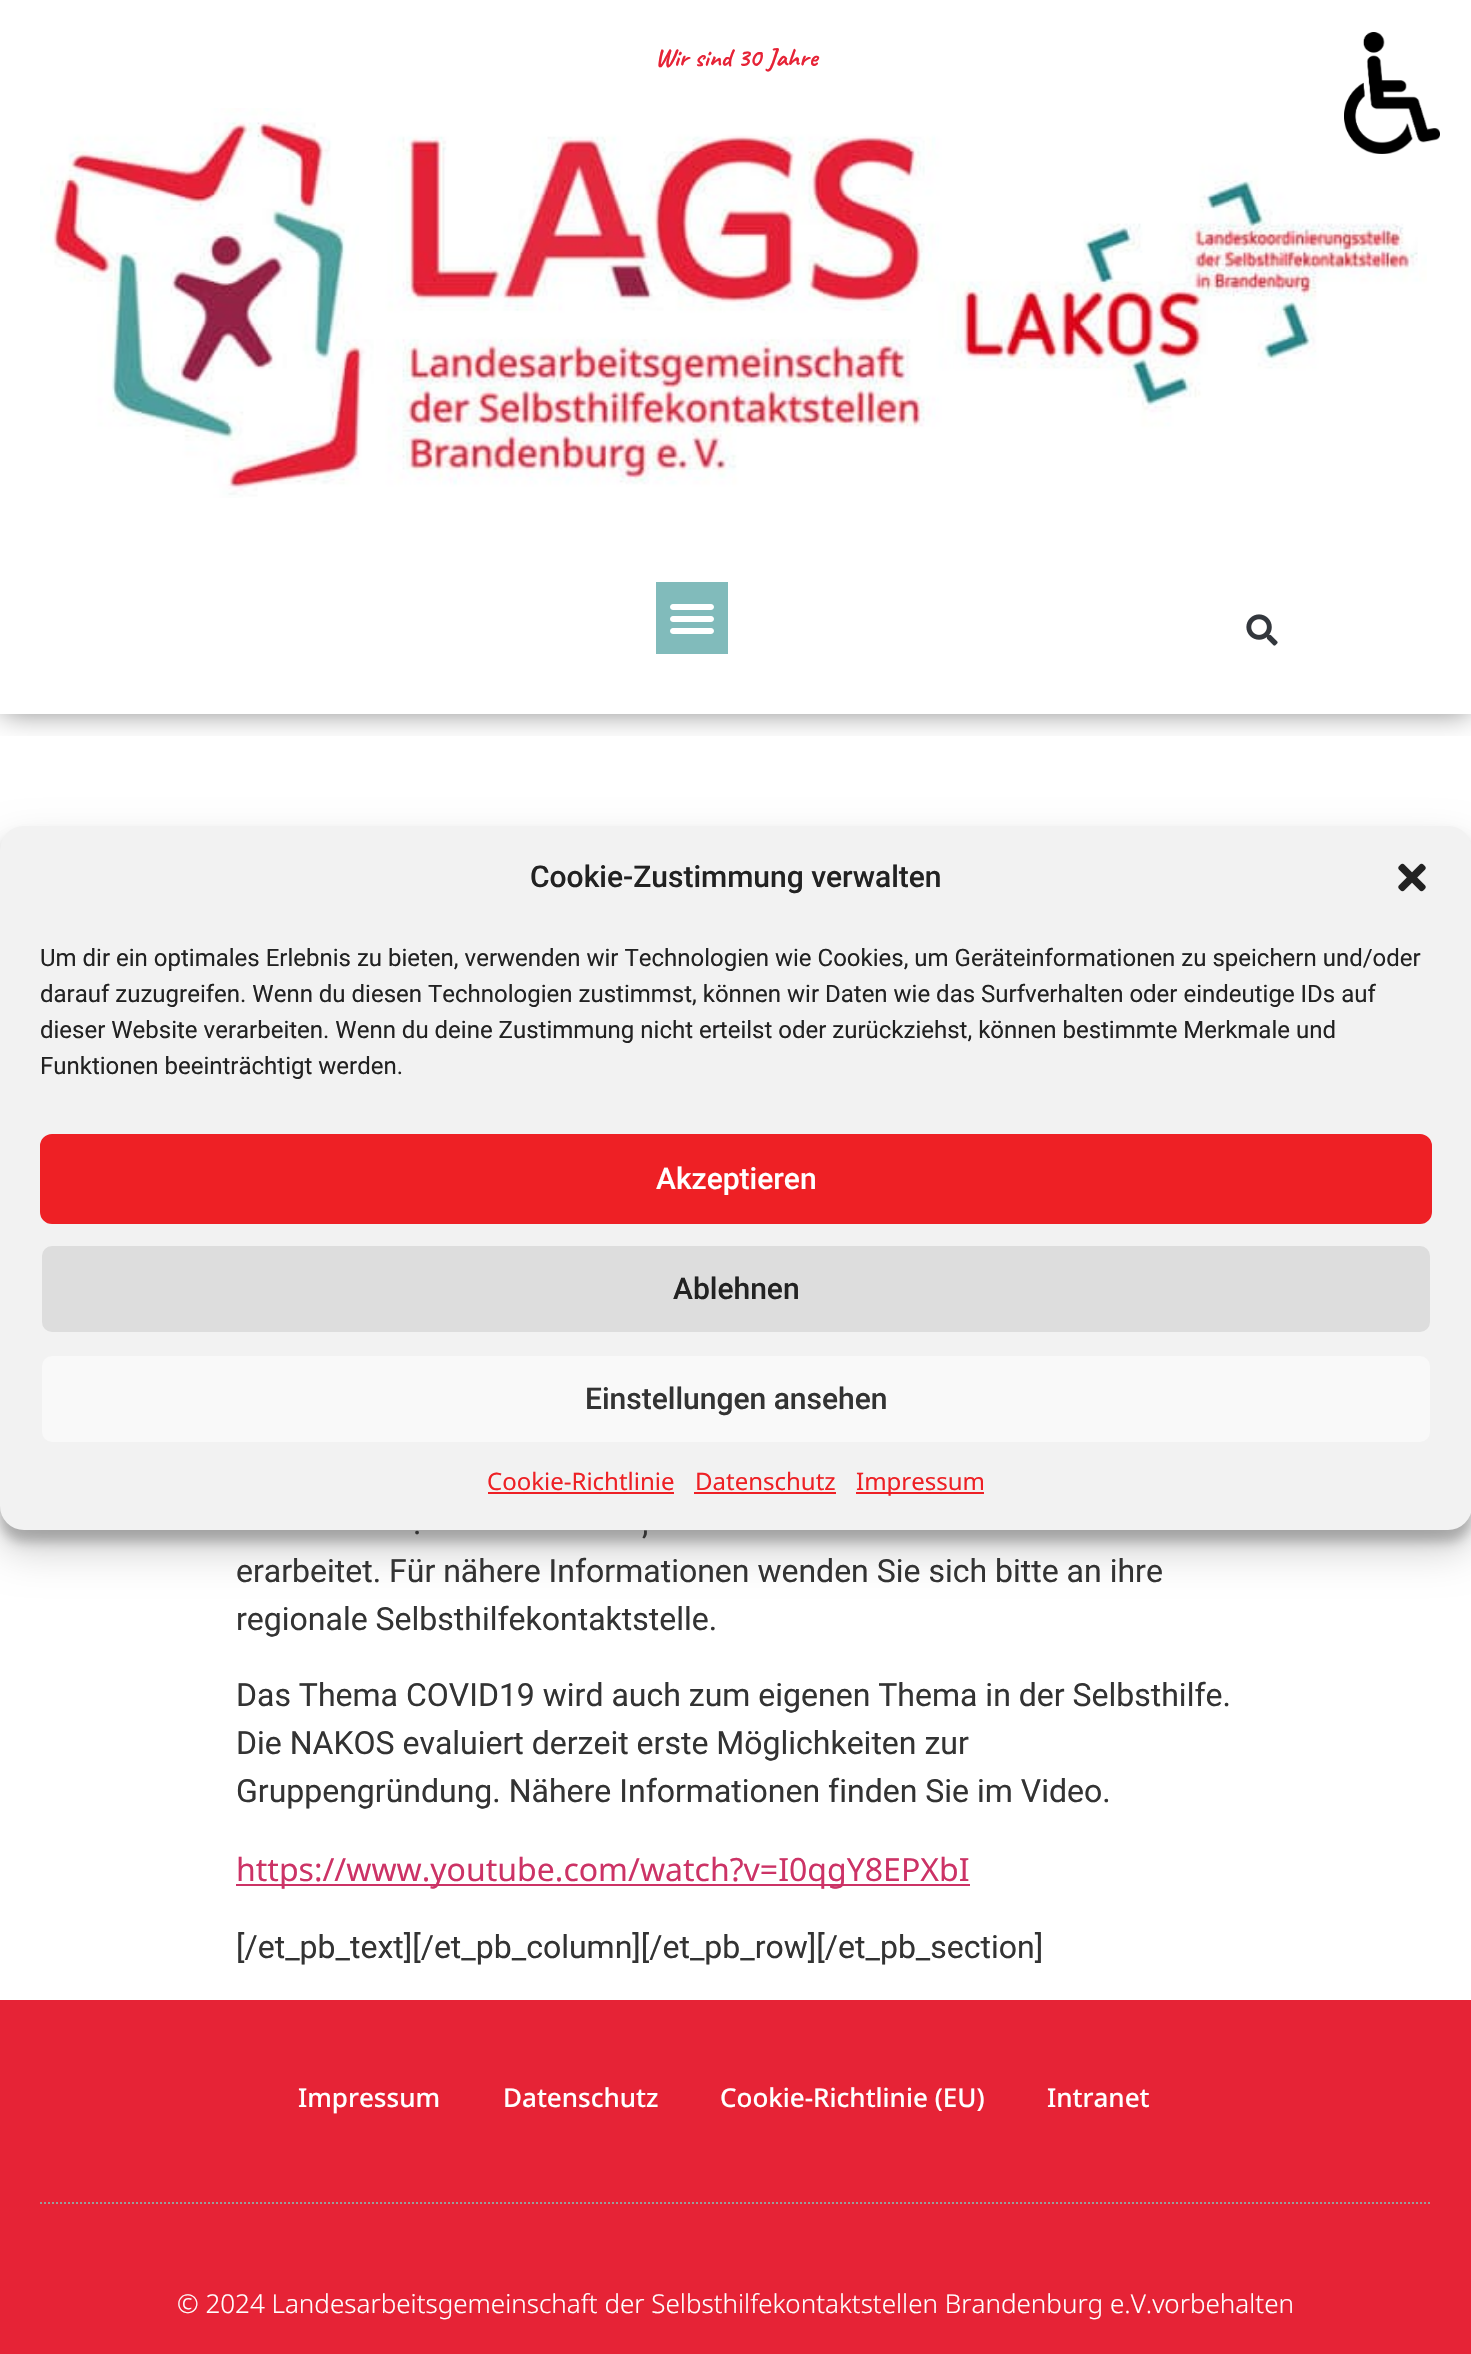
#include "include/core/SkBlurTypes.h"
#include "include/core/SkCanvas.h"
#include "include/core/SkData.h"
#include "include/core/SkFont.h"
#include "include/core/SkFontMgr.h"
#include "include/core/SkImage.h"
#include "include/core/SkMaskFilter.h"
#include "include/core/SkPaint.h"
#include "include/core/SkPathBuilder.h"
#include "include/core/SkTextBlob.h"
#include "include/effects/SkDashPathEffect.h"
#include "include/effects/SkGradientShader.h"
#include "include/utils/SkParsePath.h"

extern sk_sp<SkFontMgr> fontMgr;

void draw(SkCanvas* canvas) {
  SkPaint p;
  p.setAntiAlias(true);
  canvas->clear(SK_ColorWHITE);
  canvas->save();
  canvas->clipRect(SkRect::MakeLTRB(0, 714, 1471, 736));
  p.setColor(SkColorSetARGB(128, 0, 0, 0));
  p.setMaskFilter(SkMaskFilter::MakeBlur(kNormal_SkBlurStyle, 14));
  canvas->drawRect(SkRect::MakeLTRB(2, 2, 1470, 712), p);
  p.setMaskFilter(nullptr);
  canvas->restore();
  canvas->drawImageRect(SkImages::DeferredFromEncodedData(SkData::MakeFromFileName("images/1.png")), SkRect::MakeLTRB(40, 108, 1427, 498), SkSamplingOptions());
  p.setColor(SkColorSetRGB(129, 187, 187));
  canvas->drawRect(SkRect::MakeLTRB(656, 582, 728, 654), p);
  canvas->drawImageRect(SkImages::DeferredFromEncodedData(SkData::MakeFromFileName("images/2.png")), SkRect::MakeLTRB(670, 604, 714, 634), SkSamplingOptions());
  canvas->drawImageRect(SkImages::DeferredFromEncodedData(SkData::MakeFromFileName("images/3.png")), SkRect::MakeLTRB(1246, 614, 1278, 646), SkSamplingOptions());
  canvas->drawImageRect(SkImages::DeferredFromEncodedData(SkData::MakeFromFileName("images/4.png")), SkRect::MakeLTRB(1344, 32, 1440, 154), SkSamplingOptions());
  p.setColor(SkColorSetARGB(59, 0, 0, 0));
  p.setMaskFilter(SkMaskFilter::MakeBlur(kNormal_SkBlurStyle, 6));
  canvas->drawRoundRect(SkRect::MakeLTRB(0, 838, 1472, 1542), 24, 24, p);
  p.setMaskFilter(nullptr);
  p.setColor(SkColorSetARGB(48, 0, 0, 0));
  p.setMaskFilter(SkMaskFilter::MakeBlur(kNormal_SkBlurStyle, 20));
  canvas->drawRoundRect(SkRect::MakeLTRB(0, 846, 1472, 1550), 24, 24, p);
  p.setMaskFilter(nullptr);
  p.setColor(SkColorSetRGB(242, 242, 242));
  canvas->drawRoundRect(SkRect::MakeLTRB(0, 826, 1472, 1530), 24, 24, p);
  canvas->drawImageRect(SkImages::DeferredFromEncodedData(SkData::MakeFromFileName("images/5.png")), SkRect::MakeLTRB(1398, 863, 1426, 892), SkSamplingOptions());
  p.setColor(SkColorSetRGB(238, 32, 37));
  canvas->drawRoundRect(SkRect::MakeLTRB(41, 1135, 1431, 1223), 11, 11, p);
  p.setStyle(SkPaint::kStroke_Style);
  p.setStrokeWidth(2);
  canvas->drawRoundRect(SkRect::MakeLTRB(41, 1135, 1431, 1223), 11, 11, p);
  p.setStyle(SkPaint::kFill_Style);
  p.setColor(SkColorSetRGB(221, 221, 221));
  canvas->drawRoundRect(SkRect::MakeLTRB(41, 1245, 1431, 1333), 11, 11, p);
  p.setStyle(SkPaint::kStroke_Style);
  p.setColor(SkColorSetRGB(242, 242, 242));
  canvas->drawRoundRect(SkRect::MakeLTRB(41, 1245, 1431, 1333), 11, 11, p);
  p.setStyle(SkPaint::kFill_Style);
  p.setColor(SkColorSetRGB(249, 249, 249));
  canvas->drawRoundRect(SkRect::MakeLTRB(41, 1355, 1431, 1443), 11, 11, p);
  p.setStyle(SkPaint::kStroke_Style);
  p.setColor(SkColorSetRGB(242, 242, 242));
  canvas->drawRoundRect(SkRect::MakeLTRB(41, 1355, 1431, 1443), 11, 11, p);
  p.setStyle(SkPaint::kFill_Style);
  p.setColor(SkColorSetRGB(238, 32, 37));
  canvas->drawRect(SkRect::MakeLTRB(488, 1492, 674, 1494), p);
  canvas->drawRect(SkRect::MakeLTRB(694, 1492, 836, 1494), p);
  canvas->drawRect(SkRect::MakeLTRB(856, 1492, 984, 1494), p);
  p.setColor(SkColorSetRGB(204, 51, 102));
  canvas->drawRect(SkRect::MakeLTRB(236, 1884, 970, 1886), p);
  p.setColor(SkColorSetRGB(230, 35, 54));
  canvas->drawRect(SkRect::MakeLTRB(0, 2000, 1471, 2354), p);
  p.setStyle(SkPaint::kStroke_Style);
  p.setColor(SkColorSetRGB(155, 155, 155));
  p.setPathEffect(SkDashPathEffect::Make({{2, 2}}, 0));
  canvas->drawPath(SkPathBuilder().moveTo(40, 2203).lineTo(1432, 2203).detach(), p);
  p.setPathEffect(nullptr);
  SkFont font1(fontMgr->matchFamilyStyle("Caveat", SkFontStyle::Bold()), 26);
  font1.setSubpixel(true);
  p.setStyle(SkPaint::kFill_Style);
  p.setColor(SkColorSetRGB(230, 35, 54));
  canvas->drawString("Wir sind 30 Jahre", 655, 66, font1, p);
  SkFont font2(fontMgr->matchFamilyStyle("Roboto", SkFontStyle(500, SkFontStyle::kNormal_Width, SkFontStyle::kUpright_Slant)), 30);
  font2.setSubpixel(true);
  p.setColor(SkColorSetRGB(34, 34, 34));
  canvas->drawString("Cookie-Zustimmung verwalten", 530, 887, font2, p);
  SkFont font3(fontMgr->matchFamilyStyle("Roboto", SkFontStyle::Normal()), 24);
  font3.setSubpixel(true);
  canvas->drawString("Um dir ein optimales Erlebnis zu bieten, verwenden wir Technologien wie Cookies, um Geräteinformationen zu speichern und/oder", 40, 966, font3, p);
  canvas->drawString("darauf zuzugreifen. Wenn du diesen Technologien zustimmst, können wir Daten wie das Surfverhalten oder eindeutige IDs auf", 40, 1002, font3, p);
  canvas->drawString("dieser Website verarbeiten. Wenn du deine Zustimmung nicht erteilst oder zurückziehst, können bestimmte Merkmale und", 40, 1038, font3, p);
  canvas->drawString("Funktionen beeinträchtigt werden.", 40, 1074, font3, p);
  p.setColor(SK_ColorWHITE);
  canvas->drawString("Akzeptieren", 656, 1189, font2, p);
  p.setColor(SkColorSetRGB(34, 34, 34));
  canvas->drawString("Ablehnen", 673, 1299, font2, p);
  p.setColor(SkColorSetRGB(51, 51, 51));
  canvas->drawString("Einstellungen ansehen", 585, 1409, font2, p);
  SkFont font4(fontMgr->matchFamilyStyle("Noto Sans", SkFontStyle::Normal()), 24);
  font4.setSubpixel(true);
  p.setColor(SkColorSetRGB(238, 32, 37));
  canvas->drawString("Cookie-Richtlinie", 487, 1490, font4, p);
  canvas->drawString("Datenschutz", 695, 1490, font4, p);
  canvas->drawString("Impressum", 856, 1490, font4, p);
  SkFont font5(fontMgr->matchFamilyStyle("Roboto", SkFontStyle::Normal()), 32);
  font5.setSubpixel(true);
  p.setColor(SkColorSetRGB(51, 51, 51));
  canvas->drawString(".", 413, 1534, font5, p);
  canvas->drawString(",", 642, 1534, font5, p);
  canvas->drawString("erarbeitet. Für nähere Informationen wenden Sie sich bitte an ihre", 236, 1582, font5, p);
  canvas->drawString("regionale Selbsthilfekontaktstelle.", 236, 1630, font5, p);
  canvas->drawString("Das Thema COVID19 wird auch zum eigenen Thema in der Selbsthilfe.", 236, 1706, font5, p);
  canvas->drawString("Die NAKOS evaluiert derzeit erste Möglichkeiten zur", 236, 1754, font5, p);
  canvas->drawString("Gruppengründung. Nähere Informationen finden Sie im Video.", 236, 1802, font5, p);
  SkFont font6(fontMgr->matchFamilyStyle("Noto Sans", SkFontStyle::Normal()), 32);
  font6.setSubpixel(true);
  p.setColor(SkColorSetRGB(204, 51, 102));
  canvas->drawString("https://www.youtube.com/watch?v=I0qgY8EPXbI", 236, 1881, font6, p);
  p.setColor(SkColorSetRGB(51, 51, 51));
  canvas->drawString("[/et_pb_text][/et_pb_column][/et_pb_row][/et_pb_section]", 236, 1958, font5, p);
  SkFont font7(fontMgr->matchFamilyStyle("Noto Sans", SkFontStyle(500, SkFontStyle::kNormal_Width, SkFontStyle::kUpright_Slant)), 26);
  font7.setSubpixel(true);
  p.setColor(SK_ColorWHITE);
  canvas->drawString("Impressum", 298, 2107, font7, p);
  canvas->drawString("Datenschutz", 503, 2107, font7, p);
  canvas->drawString("Cookie-Richtlinie (EU)", 720, 2107, font7, p);
  canvas->drawString("Intranet", 1047, 2107, font7, p);
  SkFont font8(fontMgr->matchFamilyStyle("Noto Sans", SkFontStyle(300, SkFontStyle::kNormal_Width, SkFontStyle::kUpright_Slant)), 26);
  font8.setSubpixel(true);
  canvas->drawString("© 2024 Landesarbeitsgemeinschaft der Selbsthilfekontaktstellen Brandenburg e.V.vorbehalten", 177, 2313, font8, p);
}
